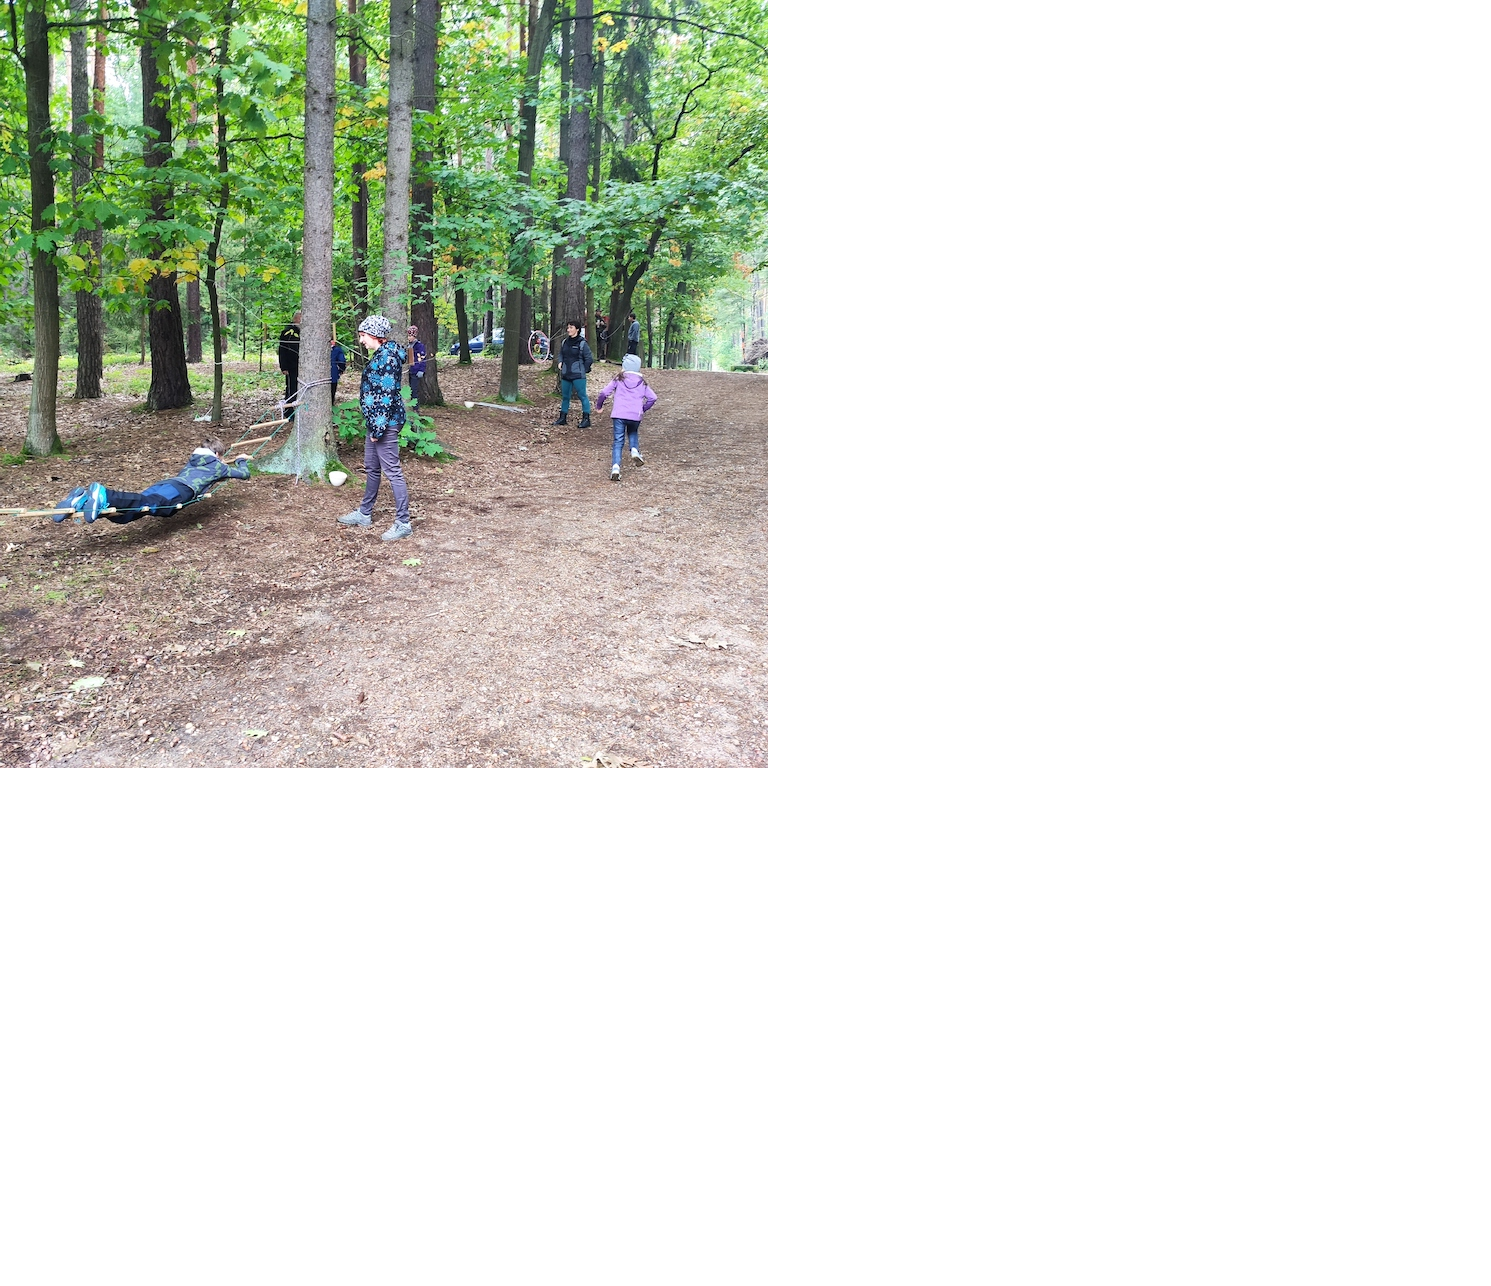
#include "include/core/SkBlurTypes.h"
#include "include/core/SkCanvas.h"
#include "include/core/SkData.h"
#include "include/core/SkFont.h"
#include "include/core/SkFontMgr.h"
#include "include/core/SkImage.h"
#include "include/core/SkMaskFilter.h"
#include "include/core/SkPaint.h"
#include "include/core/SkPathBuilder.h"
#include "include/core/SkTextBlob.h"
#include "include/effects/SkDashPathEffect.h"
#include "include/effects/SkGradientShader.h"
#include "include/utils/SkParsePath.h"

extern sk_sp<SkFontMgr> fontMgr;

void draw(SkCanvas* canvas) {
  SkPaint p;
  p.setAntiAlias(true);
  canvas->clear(SK_ColorWHITE);
  canvas->drawImageRect(SkImages::DeferredFromEncodedData(SkData::MakeFromFileName("images/1.png")), SkRect::MakeLTRB(0, 0, 768, 768), SkSamplingOptions());
}
